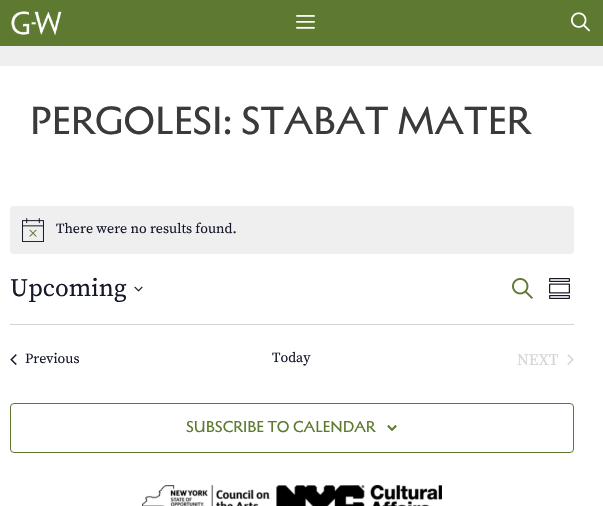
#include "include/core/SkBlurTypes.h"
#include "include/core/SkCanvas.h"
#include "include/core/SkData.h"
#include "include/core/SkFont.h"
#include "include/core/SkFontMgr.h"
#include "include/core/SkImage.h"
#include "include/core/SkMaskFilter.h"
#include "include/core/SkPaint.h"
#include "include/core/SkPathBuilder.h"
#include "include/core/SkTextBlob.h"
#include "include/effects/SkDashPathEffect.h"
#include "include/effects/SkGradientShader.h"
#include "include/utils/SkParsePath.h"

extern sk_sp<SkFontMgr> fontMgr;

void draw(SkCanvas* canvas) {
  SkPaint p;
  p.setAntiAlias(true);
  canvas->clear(SkColorSetRGB(239, 239, 239));
  p.setColor(SkColorSetRGB(94, 121, 48));
  canvas->drawRect(SkRect::MakeLTRB(0, 0, 603, 46), p);
  canvas->drawImageRect(SkImages::DeferredFromEncodedData(SkData::MakeFromFileName("images/1.png")), SkRect::MakeLTRB(11, 11, 62, 35), SkSamplingOptions());
  canvas->drawImageRect(SkImages::DeferredFromEncodedData(SkData::MakeFromFileName("images/2.png")), SkRect::MakeLTRB(296, 15, 315, 29), SkSamplingOptions());
  canvas->drawImageRect(SkImages::DeferredFromEncodedData(SkData::MakeFromFileName("images/3.png")), SkRect::MakeLTRB(571, 12, 590, 32), SkSamplingOptions());
  p.setColor(SK_ColorWHITE);
  canvas->drawRect(SkRect::MakeLTRB(0, 66, 603, 506), p);
  p.setColor(SkColorSetRGB(239, 239, 240));
  canvas->drawRoundRect(SkRect::MakeLTRB(10, 206, 574, 254), 4, 4, p);
  canvas->drawImageRect(SkImages::DeferredFromEncodedData(SkData::MakeFromFileName("images/4.png")), SkRect::MakeLTRB(22, 218, 44, 242), SkSamplingOptions());
  canvas->drawImageRect(SkImages::DeferredFromEncodedData(SkData::MakeFromFileName("images/5.png")), SkRect::MakeLTRB(134, 286, 143, 292), SkSamplingOptions());
  canvas->drawImageRect(SkImages::DeferredFromEncodedData(SkData::MakeFromFileName("images/6.png")), SkRect::MakeLTRB(512, 278, 533, 299), SkSamplingOptions());
  canvas->drawImageRect(SkImages::DeferredFromEncodedData(SkData::MakeFromFileName("images/7.png")), SkRect::MakeLTRB(549, 278, 570, 299), SkSamplingOptions());
  p.setColor(SkColorSetRGB(213, 213, 213));
  canvas->drawRect(SkRect::MakeLTRB(10, 324, 574, 325), p);
  canvas->drawImageRect(SkImages::DeferredFromEncodedData(SkData::MakeFromFileName("images/8.png")), SkRect::MakeLTRB(10, 354, 17, 365), SkSamplingOptions());
  canvas->drawImageRect(SkImages::DeferredFromEncodedData(SkData::MakeFromFileName("images/9.png")), SkRect::MakeLTRB(567, 354, 574, 365), SkSamplingOptions());
  p.setStyle(SkPaint::kStroke_Style);
  p.setStrokeWidth(1);
  p.setColor(SkColorSetRGB(94, 121, 48));
  canvas->drawRoundRect(SkRect::MakeLTRB(10.5f, 403.5f, 573.5f, 452.5f), 3.5f, 3.5f, p);
  canvas->drawImageRect(SkImages::DeferredFromEncodedData(SkData::MakeFromFileName("images/10.png")), SkRect::MakeLTRB(387, 425, 397, 431), SkSamplingOptions());
  canvas->drawImageRect(SkImages::DeferredFromEncodedData(SkData::MakeFromFileName("images/11.png")), SkRect::MakeLTRB(142, 485, 442, 506), SkSamplingOptions());
  SkFont font1(fontMgr->matchFamilyStyle("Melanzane", SkFontStyle::Normal()), 40);
  font1.setSubpixel(true);
  p.setStyle(SkPaint::kFill_Style);
  p.setColor(SkColorSetRGB(58, 58, 58));
  canvas->drawString("PERGOLESI: STABAT MATER", 30, 134, font1, p);
  SkFont font2(fontMgr->matchFamilyStyle("Source Serif Pro", SkFontStyle::Normal()), 14);
  font2.setSubpixel(true);
  p.setColor(SkColorSetRGB(20, 24, 39));
  canvas->drawString("There were no results found.", 56, 233, font2, p);
  SkFont font3(fontMgr->matchFamilyStyle("Source Serif Pro", SkFontStyle::Normal()), 25);
  font3.setSubpixel(true);
  canvas->drawString("Upcoming", 10, 296, font3, p);
  canvas->drawString("Previous", 25, 363, font2, p);
  canvas->drawString("Today", 272, 362, font2, p);
  SkFont font4(fontMgr->matchFamilyStyle("Source Serif Pro", SkFontStyle::Normal()), 16);
  font4.setSubpixel(true);
  p.setColor(SkColorSetRGB(213, 213, 213));
  canvas->drawString("NEXT", 517, 365, font4, p);
  SkFont font5(fontMgr->matchFamilyStyle("Melanzane", SkFontStyle::Normal()), 16);
  font5.setSubpixel(true);
  p.setColor(SkColorSetRGB(94, 121, 48));
  canvas->drawString("SUBSCRIBE TO CALENDAR", 186, 432, font5, p);
}
